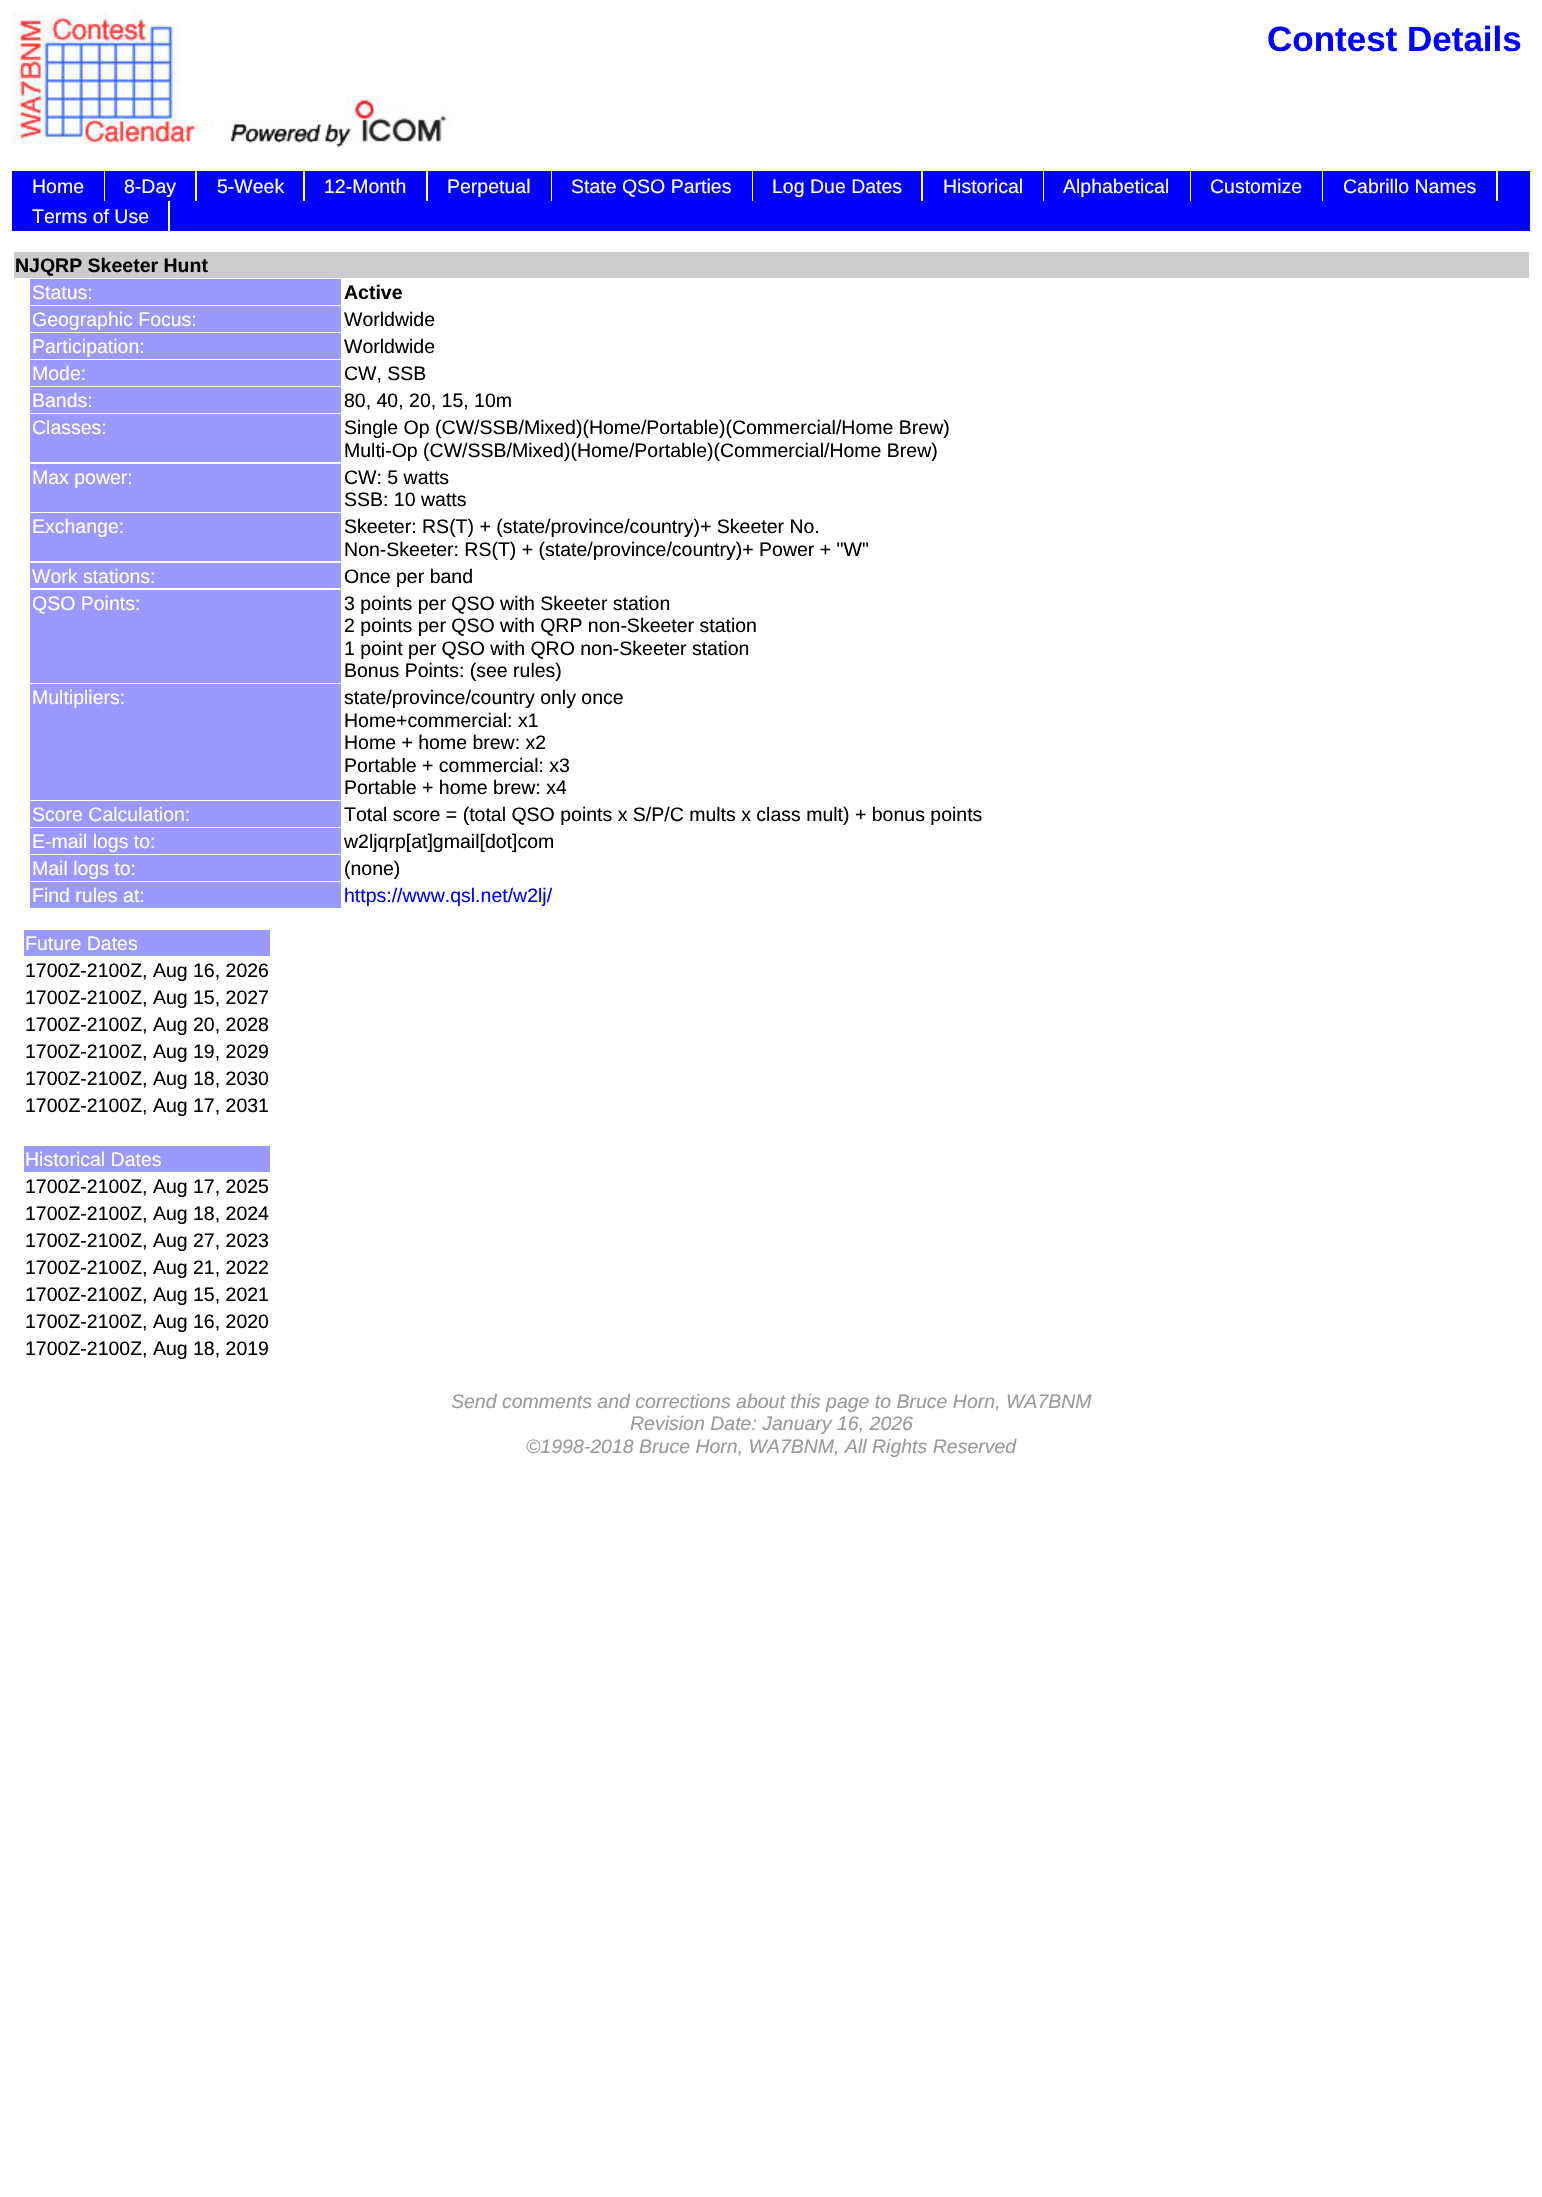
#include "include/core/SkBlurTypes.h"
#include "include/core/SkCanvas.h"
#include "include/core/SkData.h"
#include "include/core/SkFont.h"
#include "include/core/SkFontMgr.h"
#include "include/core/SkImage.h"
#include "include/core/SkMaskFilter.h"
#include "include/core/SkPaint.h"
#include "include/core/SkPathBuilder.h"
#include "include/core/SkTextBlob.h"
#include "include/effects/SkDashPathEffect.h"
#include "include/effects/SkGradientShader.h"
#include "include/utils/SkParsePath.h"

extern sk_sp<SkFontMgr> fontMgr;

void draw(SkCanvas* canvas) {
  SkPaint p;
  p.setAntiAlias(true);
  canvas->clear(SK_ColorWHITE);
  canvas->drawImageRect(SkImages::DeferredFromEncodedData(SkData::MakeFromFileName("images/1.png")), SkRect::MakeLTRB(12, 12, 204, 145), SkSamplingOptions());
  canvas->drawImageRect(SkImages::DeferredFromEncodedData(SkData::MakeFromFileName("images/2.png")), SkRect::MakeLTRB(210, 96, 451, 147), SkSamplingOptions());
  p.setColor(SkColorSetRGB(0, 0, 255));
  canvas->drawRect(SkRect::MakeLTRB(12, 171, 1530, 231), p);
  p.setColor(SK_ColorWHITE);
  canvas->drawRect(SkRect::MakeLTRB(104, 171, 105, 201), p);
  canvas->drawRect(SkRect::MakeLTRB(195, 171, 197, 201), p);
  canvas->drawRect(SkRect::MakeLTRB(303, 171, 305, 201), p);
  canvas->drawRect(SkRect::MakeLTRB(426, 171, 428, 201), p);
  canvas->drawRect(SkRect::MakeLTRB(551, 171, 552, 201), p);
  canvas->drawRect(SkRect::MakeLTRB(752, 171, 753, 201), p);
  canvas->drawRect(SkRect::MakeLTRB(921, 171, 923, 201), p);
  canvas->drawRect(SkRect::MakeLTRB(1043, 171, 1044, 201), p);
  canvas->drawRect(SkRect::MakeLTRB(1190, 171, 1191, 201), p);
  canvas->drawRect(SkRect::MakeLTRB(1322, 171, 1323, 201), p);
  canvas->drawRect(SkRect::MakeLTRB(1496, 171, 1498, 201), p);
  canvas->drawRect(SkRect::MakeLTRB(168, 201, 170, 231), p);
  p.setColor(SkColorSetRGB(204, 204, 204));
  canvas->drawRect(SkRect::MakeLTRB(14, 252, 1529, 278), p);
  p.setColor(SkColorSetRGB(153, 153, 255));
  canvas->drawRect(SkRect::MakeLTRB(30, 279, 341, 305), p);
  canvas->drawRect(SkRect::MakeLTRB(30, 306, 341, 332), p);
  canvas->drawRect(SkRect::MakeLTRB(30, 333, 341, 359), p);
  canvas->drawRect(SkRect::MakeLTRB(30, 360, 341, 386), p);
  canvas->drawRect(SkRect::MakeLTRB(30, 387, 341, 413), p);
  canvas->drawRect(SkRect::MakeLTRB(30, 414, 341, 462), p);
  canvas->drawRect(SkRect::MakeLTRB(30, 464, 341, 512), p);
  canvas->drawRect(SkRect::MakeLTRB(30, 513, 341, 561), p);
  canvas->drawRect(SkRect::MakeLTRB(30, 563, 341, 588), p);
  canvas->drawRect(SkRect::MakeLTRB(30, 590, 341, 683), p);
  canvas->drawRect(SkRect::MakeLTRB(30, 684, 341, 800), p);
  canvas->drawRect(SkRect::MakeLTRB(30, 801, 341, 827), p);
  canvas->drawRect(SkRect::MakeLTRB(30, 828, 341, 854), p);
  canvas->drawRect(SkRect::MakeLTRB(30, 855, 341, 881), p);
  canvas->drawRect(SkRect::MakeLTRB(30, 882, 341, 908), p);
  canvas->drawRect(SkRect::MakeLTRB(24, 930, 270, 956), p);
  canvas->drawRect(SkRect::MakeLTRB(24, 1146, 270, 1172), p);
  SkFont font1(fontMgr->matchFamilyStyle("Liberation Sans", SkFontStyle::Bold()), 35);
  font1.setSubpixel(true);
  p.setColor(SkColorSetRGB(0, 0, 255));
  canvas->drawString("Contest Details", 1267, 51, font1, p);
  SkFont font2(fontMgr->matchFamilyStyle("Liberation Sans", SkFontStyle::Normal()), 19.5f);
  font2.setSubpixel(true);
  p.setColor(SK_ColorWHITE);
  canvas->drawString("Home", 32, 193, font2, p);
  canvas->drawString("8-Day", 124, 193, font2, p);
  canvas->drawString("5-Week", 217, 193, font2, p);
  canvas->drawString("12-Month", 324, 193, font2, p);
  canvas->drawString("Perpetual", 447, 193, font2, p);
  canvas->drawString("State QSO Parties", 571, 193, font2, p);
  canvas->drawString("Log Due Dates", 772, 193, font2, p);
  canvas->drawString("Historical", 943, 193, font2, p);
  canvas->drawString("Alphabetical", 1063, 193, font2, p);
  canvas->drawString("Customize", 1210, 193, font2, p);
  canvas->drawString("Cabrillo Names", 1343, 193, font2, p);
  canvas->drawString("Terms of Use", 32, 223, font2, p);
  SkFont font3(fontMgr->matchFamilyStyle("Liberation Sans", SkFontStyle::Bold()), 19.5f);
  font3.setSubpixel(true);
  p.setColor(SK_ColorBLACK);
  canvas->drawString("NJQRP Skeeter Hunt", 15, 272, font3, p);
  p.setColor(SK_ColorWHITE);
  canvas->drawString("Status:", 32, 299, font2, p);
  p.setColor(SK_ColorBLACK);
  canvas->drawString("Active", 344, 299, font3, p);
  p.setColor(SK_ColorWHITE);
  canvas->drawString("Geographic Focus:", 32, 326, font2, p);
  p.setColor(SK_ColorBLACK);
  canvas->drawString("Worldwide", 344, 326, font2, p);
  p.setColor(SK_ColorWHITE);
  canvas->drawString("Participation:", 32, 353, font2, p);
  p.setColor(SK_ColorBLACK);
  canvas->drawString("Worldwide", 344, 353, font2, p);
  p.setColor(SK_ColorWHITE);
  canvas->drawString("Mode:", 32, 380, font2, p);
  p.setColor(SK_ColorBLACK);
  canvas->drawString("CW, SSB", 344, 380, font2, p);
  p.setColor(SK_ColorWHITE);
  canvas->drawString("Bands:", 32, 407, font2, p);
  p.setColor(SK_ColorBLACK);
  canvas->drawString("80, 40, 20, 15, 10m", 344, 407, font2, p);
  p.setColor(SK_ColorWHITE);
  canvas->drawString("Classes:", 32, 434, font2, p);
  p.setColor(SK_ColorBLACK);
  canvas->drawString("Single Op (CW/SSB/Mixed)(Home/Portable)(Commercial/Home Brew)", 344, 434, font2, p);
  canvas->drawString("Multi-Op (CW/SSB/Mixed)(Home/Portable)(Commercial/Home Brew)", 344, 457, font2, p);
  p.setColor(SK_ColorWHITE);
  canvas->drawString("Max power:", 32, 484, font2, p);
  p.setColor(SK_ColorBLACK);
  canvas->drawString("CW: 5 watts", 344, 484, font2, p);
  canvas->drawString("SSB: 10 watts", 344, 506, font2, p);
  p.setColor(SK_ColorWHITE);
  canvas->drawString("Exchange:", 32, 533, font2, p);
  p.setColor(SK_ColorBLACK);
  canvas->drawString("Skeeter: RS(T) + (state/province/country)+ Skeeter No.", 344, 533, font2, p);
  canvas->drawString("Non-Skeeter: RS(T) + (state/province/country)+ Power + \"W\"", 344, 556, font2, p);
  p.setColor(SK_ColorWHITE);
  canvas->drawString("Work stations:", 32, 583, font2, p);
  p.setColor(SK_ColorBLACK);
  canvas->drawString("Once per band", 344, 583, font2, p);
  p.setColor(SK_ColorWHITE);
  canvas->drawString("QSO Points:", 32, 610, font2, p);
  p.setColor(SK_ColorBLACK);
  canvas->drawString("3 points per QSO with Skeeter station", 344, 610, font2, p);
  canvas->drawString("2 points per QSO with QRP non-Skeeter station", 344, 632, font2, p);
  canvas->drawString("1 point per QSO with QRO non-Skeeter station", 344, 655, font2, p);
  canvas->drawString("Bonus Points: (see rules)", 344, 677, font2, p);
  p.setColor(SK_ColorWHITE);
  canvas->drawString("Multipliers:", 32, 704, font2, p);
  p.setColor(SK_ColorBLACK);
  canvas->drawString("state/province/country only once", 344, 704, font2, p);
  canvas->drawString("Home+commercial: x1", 344, 727, font2, p);
  canvas->drawString("Home + home brew: x2", 344, 749, font2, p);
  canvas->drawString("Portable + commercial: x3", 344, 772, font2, p);
  canvas->drawString("Portable + home brew: x4", 344, 794, font2, p);
  p.setColor(SK_ColorWHITE);
  canvas->drawString("Score Calculation:", 32, 821, font2, p);
  p.setColor(SK_ColorBLACK);
  canvas->drawString("Total score = (total QSO points x S/P/C mults x class mult) + bonus points", 344, 821, font2, p);
  p.setColor(SK_ColorWHITE);
  canvas->drawString("E-mail logs to:", 32, 848, font2, p);
  p.setColor(SK_ColorBLACK);
  canvas->drawString("w2ljqrp[at]gmail[dot]com", 344, 848, font2, p);
  p.setColor(SK_ColorWHITE);
  canvas->drawString("Mail logs to:", 32, 875, font2, p);
  p.setColor(SK_ColorBLACK);
  canvas->drawString("(none)", 344, 875, font2, p);
  p.setColor(SK_ColorWHITE);
  canvas->drawString("Find rules at:", 32, 902, font2, p);
  p.setColor(SkColorSetRGB(0, 0, 255));
  canvas->drawString("https://www.qsl.net/w2lj/", 344, 902, font2, p);
  p.setColor(SK_ColorWHITE);
  canvas->drawString("Future Dates", 25, 950, font2, p);
  p.setColor(SK_ColorBLACK);
  canvas->drawString("1700Z-2100Z, Aug 16, 2026", 25, 977, font2, p);
  canvas->drawString("1700Z-2100Z, Aug 15, 2027", 25, 1004, font2, p);
  canvas->drawString("1700Z-2100Z, Aug 20, 2028", 25, 1031, font2, p);
  canvas->drawString("1700Z-2100Z, Aug 19, 2029", 25, 1058, font2, p);
  canvas->drawString("1700Z-2100Z, Aug 18, 2030", 25, 1085, font2, p);
  canvas->drawString("1700Z-2100Z, Aug 17, 2031", 25, 1112, font2, p);
  p.setColor(SK_ColorWHITE);
  canvas->drawString("Historical Dates", 25, 1166, font2, p);
  p.setColor(SK_ColorBLACK);
  canvas->drawString("1700Z-2100Z, Aug 17, 2025", 25, 1193, font2, p);
  canvas->drawString("1700Z-2100Z, Aug 18, 2024", 25, 1220, font2, p);
  canvas->drawString("1700Z-2100Z, Aug 27, 2023", 25, 1247, font2, p);
  canvas->drawString("1700Z-2100Z, Aug 21, 2022", 25, 1274, font2, p);
  canvas->drawString("1700Z-2100Z, Aug 15, 2021", 25, 1301, font2, p);
  canvas->drawString("1700Z-2100Z, Aug 16, 2020", 25, 1328, font2, p);
  canvas->drawString("1700Z-2100Z, Aug 18, 2019", 25, 1355, font2, p);
  SkFont font4(fontMgr->matchFamilyStyle("Liberation Sans", SkFontStyle::Italic()), 19.5f);
  font4.setSubpixel(true);
  p.setColor(SkColorSetRGB(153, 153, 153));
  canvas->drawString("Send comments and corrections about this page to Bruce Horn, WA7BNM", 451, 1408, font4, p);
  canvas->drawString("Revision Date: January 16, 2026", 630, 1430, font4, p);
  canvas->drawString("©1998-2018 Bruce Horn, WA7BNM, All Rights Reserved", 526, 1453, font4, p);
}
